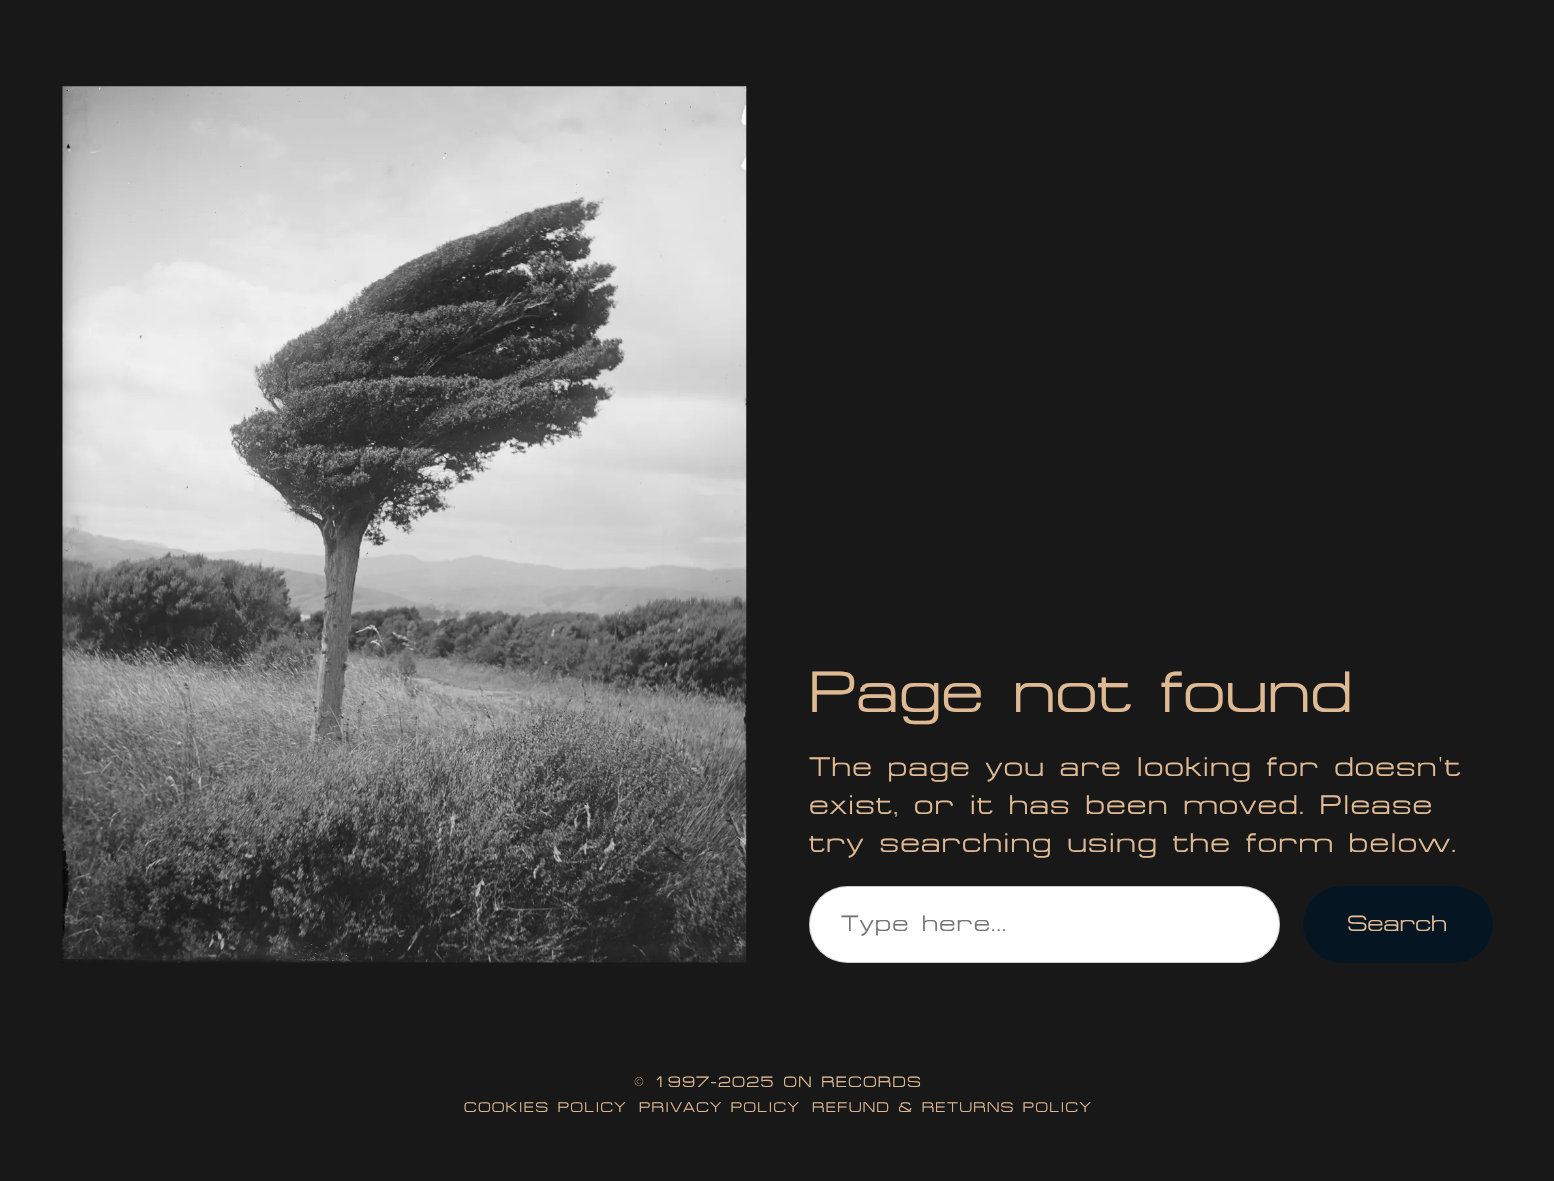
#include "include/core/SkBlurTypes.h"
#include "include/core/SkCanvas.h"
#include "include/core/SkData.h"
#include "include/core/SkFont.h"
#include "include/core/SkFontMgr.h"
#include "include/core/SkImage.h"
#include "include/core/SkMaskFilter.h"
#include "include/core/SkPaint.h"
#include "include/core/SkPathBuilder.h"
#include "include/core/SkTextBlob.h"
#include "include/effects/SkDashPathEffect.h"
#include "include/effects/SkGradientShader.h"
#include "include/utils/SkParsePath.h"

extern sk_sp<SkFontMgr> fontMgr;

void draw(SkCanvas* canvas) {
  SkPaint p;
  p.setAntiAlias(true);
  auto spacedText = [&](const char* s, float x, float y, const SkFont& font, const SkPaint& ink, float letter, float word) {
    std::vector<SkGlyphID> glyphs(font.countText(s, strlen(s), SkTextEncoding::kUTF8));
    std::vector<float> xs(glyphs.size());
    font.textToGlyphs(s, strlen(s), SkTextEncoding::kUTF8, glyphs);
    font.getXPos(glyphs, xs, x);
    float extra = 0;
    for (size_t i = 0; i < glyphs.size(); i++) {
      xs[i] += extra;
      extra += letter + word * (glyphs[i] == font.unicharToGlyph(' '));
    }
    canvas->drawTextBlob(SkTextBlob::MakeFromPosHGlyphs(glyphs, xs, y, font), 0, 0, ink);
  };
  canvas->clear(SkColorSetRGB(24, 24, 24));
  canvas->drawImageRect(SkImages::DeferredFromEncodedData(SkData::MakeFromFileName("images/1.png")), SkRect::MakeLTRB(62, 86, 747, 963), SkSamplingOptions());
  p.setColor(SK_ColorWHITE);
  canvas->drawRoundRect(SkRect::MakeLTRB(809, 886, 1280, 963), 38.5f, 38.5f, p);
  p.setStyle(SkPaint::kStroke_Style);
  p.setStrokeWidth(1);
  p.setColor(SkColorSetARGB(51, 0, 0, 0));
  canvas->drawRoundRect(SkRect::MakeLTRB(809.5f, 886.5f, 1279.5f, 962.5f), 38, 38, p);
  p.setStyle(SkPaint::kFill_Style);
  p.setColor(SkColorSetRGB(5, 22, 34));
  canvas->drawRoundRect(SkRect::MakeLTRB(1303, 886, 1493, 963), 38.5f, 38.5f, p);
  SkFont font1(fontMgr->matchFamilyStyle("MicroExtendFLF", SkFontStyle(500, SkFontStyle::kNormal_Width, SkFontStyle::kUpright_Slant)), 58.5f);
  font1.setSubpixel(true);
  p.setColor(SkColorSetRGB(222, 185, 146));
  canvas->drawString("Page not found", 809, 712, font1, p);
  SkFont font2(fontMgr->matchFamilyStyle("MicroExtendFLF", SkFontStyle(500, SkFontStyle::kNormal_Width, SkFontStyle::kUpright_Slant)), 27);
  font2.setSubpixel(true);
  spacedText("The page you are looking for doesn't", 809, 776, font2, p, 1.25f, 0);
  spacedText("exist, or it has been moved. Please", 809, 814, font2, p, 1.25f, 0);
  spacedText("try searching using the form below.", 809, 852, font2, p, 1.25f, 0);
  SkFont font3(fontMgr->matchFamilyStyle("MicroExtendFLF", SkFontStyle(500, SkFontStyle::kNormal_Width, SkFontStyle::kUpright_Slant)), 22.25f);
  font3.setSubpixel(true);
  p.setColor(SkColorSetRGB(117, 117, 117));
  spacedText("Type here...", 841, 931, font3, p, 1.25f, 0);
  p.setColor(SkColorSetRGB(222, 185, 146));
  canvas->drawString("Search", 1347, 931, font3, p);
  SkFont font4(fontMgr->matchFamilyStyle("MicroExtendFLF", SkFontStyle(500, SkFontStyle::kNormal_Width, SkFontStyle::kUpright_Slant)), 15);
  font4.setSubpixel(true);
  spacedText("© 1997-2025 ON RECORDS", 634, 1087, font4, p, 1.25f, 0);
  SkFont font5(fontMgr->matchFamilyStyle("MicroExtendFLF", SkFontStyle(500, SkFontStyle::kNormal_Width, SkFontStyle::kUpright_Slant)), 14);
  font5.setSubpixel(true);
  spacedText("COOKIES POLICY", 464, 1112, font5, p, 1.25f, 0);
  spacedText("PRIVACY POLICY", 639, 1112, font5, p, 1.25f, 0);
  spacedText("REFUND & RETURNS POLICY", 812, 1112, font5, p, 1.25f, 0);
}
